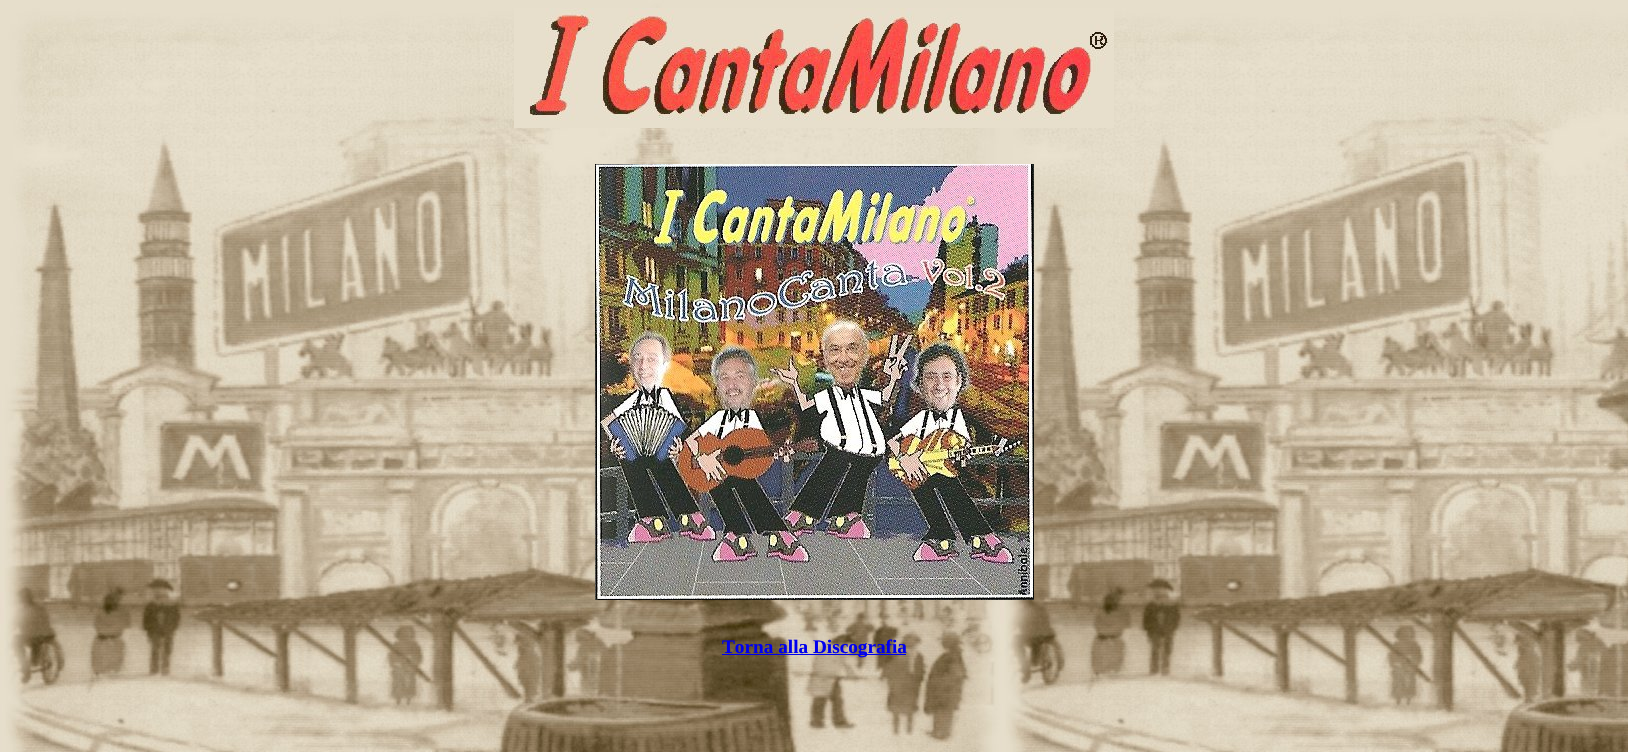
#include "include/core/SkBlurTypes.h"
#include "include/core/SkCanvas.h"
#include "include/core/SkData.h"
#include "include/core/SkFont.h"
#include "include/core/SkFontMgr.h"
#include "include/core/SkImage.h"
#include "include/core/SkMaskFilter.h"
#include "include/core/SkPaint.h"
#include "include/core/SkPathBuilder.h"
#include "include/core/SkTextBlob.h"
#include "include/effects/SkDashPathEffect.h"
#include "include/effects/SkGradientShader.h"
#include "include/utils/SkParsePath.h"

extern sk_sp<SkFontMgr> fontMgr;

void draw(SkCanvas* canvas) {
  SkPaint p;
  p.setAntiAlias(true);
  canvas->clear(SK_ColorWHITE);
  canvas->drawImageRect(SkImages::DeferredFromEncodedData(SkData::MakeFromFileName("images/1.png")), SkRect::MakeLTRB(0, 0, 1628, 752), SkSamplingOptions());
  canvas->drawImageRect(SkImages::DeferredFromEncodedData(SkData::MakeFromFileName("images/2.png")), SkRect::MakeLTRB(514, 8, 1114, 128), SkSamplingOptions());
  canvas->drawImageRect(SkImages::DeferredFromEncodedData(SkData::MakeFromFileName("images/3.png")), SkRect::MakeLTRB(595, 164, 1034, 600), SkSamplingOptions());
  p.setColor(SkColorSetRGB(0, 0, 238));
  canvas->drawRect(SkRect::MakeLTRB(722, 654, 906, 655), p);
  SkFont font1(fontMgr->matchFamilyStyle("Liberation Serif", SkFontStyle::Bold()), 19.25f);
  font1.setSubpixel(true);
  canvas->drawString("Torna alla Discografia", 722, 653, font1, p);
}
